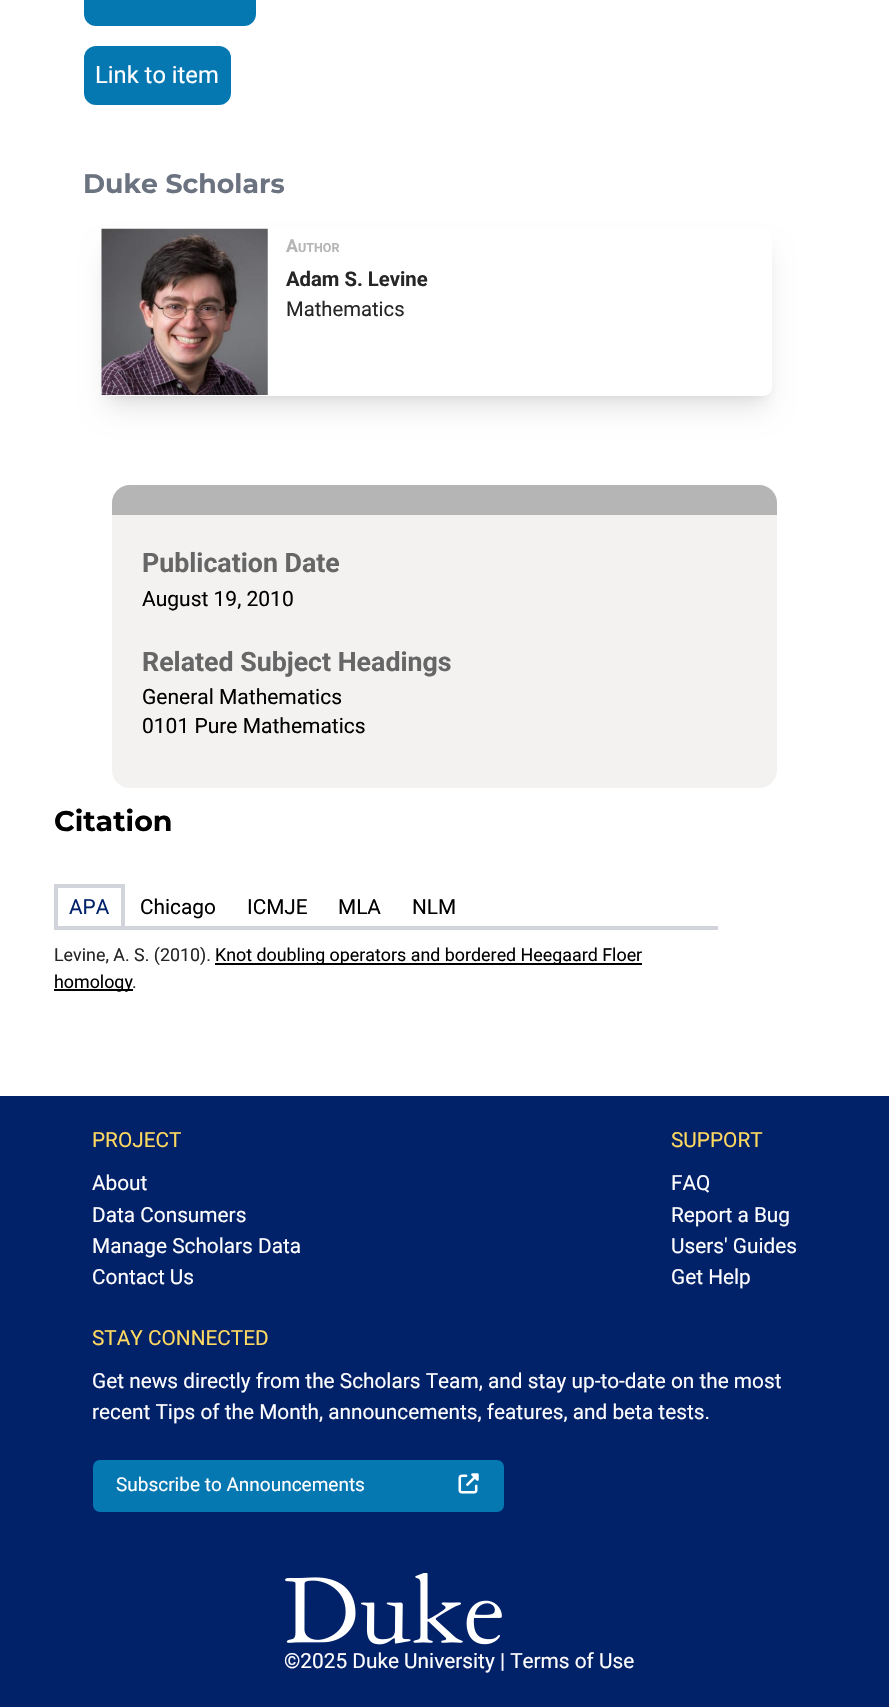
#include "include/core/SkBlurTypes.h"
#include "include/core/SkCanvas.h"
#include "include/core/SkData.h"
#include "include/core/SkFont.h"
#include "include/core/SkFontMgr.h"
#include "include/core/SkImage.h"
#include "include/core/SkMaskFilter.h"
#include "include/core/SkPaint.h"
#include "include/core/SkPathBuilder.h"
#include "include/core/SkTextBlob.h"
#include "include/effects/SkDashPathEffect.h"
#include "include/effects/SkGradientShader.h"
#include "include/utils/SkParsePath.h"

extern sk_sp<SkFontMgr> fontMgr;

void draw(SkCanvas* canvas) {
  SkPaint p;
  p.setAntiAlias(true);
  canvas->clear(SK_ColorWHITE);
  p.setColor(SkColorSetRGB(5, 119, 177));
  canvas->drawRoundRect(SkRect::MakeLTRB(84, -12, 256, 26), 12, 12, p);
  canvas->drawRoundRect(SkRect::MakeLTRB(84, 46, 231, 105), 12, 12, p);
  canvas->save();
  canvas->clipPath(SkPathBuilder(SkPathFillType::kEvenOdd).moveTo(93, 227).lineTo(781, 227).lineTo(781, 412).lineTo(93, 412).close().moveTo(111, 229).lineTo(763, 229).cubicTo(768, 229, 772, 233, 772, 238).lineTo(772, 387).cubicTo(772, 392, 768, 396, 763, 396).lineTo(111, 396).cubicTo(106, 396, 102, 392, 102, 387).lineTo(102, 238).cubicTo(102, 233, 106, 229, 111, 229).close().detach(), true);
  p.setColor(SkColorSetARGB(26, 0, 0, 0));
  p.setMaskFilter(SkMaskFilter::MakeBlur(kNormal_SkBlurStyle, 5));
  canvas->drawRoundRect(SkRect::MakeLTRB(109, 243, 765, 396), 2, 2, p);
  p.setMaskFilter(nullptr);
  canvas->restore();
  canvas->save();
  canvas->clipPath(SkPathBuilder(SkPathFillType::kEvenOdd).moveTo(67, 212).lineTo(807, 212).lineTo(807, 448).lineTo(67, 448).close().moveTo(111, 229).lineTo(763, 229).cubicTo(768, 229, 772, 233, 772, 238).lineTo(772, 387).cubicTo(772, 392, 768, 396, 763, 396).lineTo(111, 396).cubicTo(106, 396, 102, 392, 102, 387).lineTo(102, 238).cubicTo(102, 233, 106, 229, 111, 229).close().detach(), true);
  p.setMaskFilter(SkMaskFilter::MakeBlur(kNormal_SkBlurStyle, 13));
  canvas->drawRoundRect(SkRect::MakeLTRB(107, 252, 767, 408), 4, 4, p);
  p.setMaskFilter(nullptr);
  canvas->restore();
  canvas->drawImageRect(SkImages::DeferredFromEncodedData(SkData::MakeFromFileName("images/1.png")), SkRect::MakeLTRB(101, 228, 268, 395), SkSamplingOptions());
  p.setColor(SkColorSetRGB(243, 242, 241));
  canvas->drawRoundRect(SkRect::MakeLTRB(112, 485, 777, 788), 18, 18, p);
  p.setColor(SkColorSetRGB(181, 181, 181));
  canvas->drawPath(SkPathBuilder().moveTo(130, 485).lineTo(759, 485).cubicTo(769, 485, 777, 493, 777, 503).lineTo(777, 515).lineTo(112, 515).lineTo(112, 503).cubicTo(112, 493, 120, 485, 130, 485).close().detach(), p);
  p.setColor(SkColorSetRGB(209, 213, 219));
  canvas->drawRect(SkRect::MakeLTRB(54, 884, 124, 888), p);
  canvas->drawRect(SkRect::MakeLTRB(121, 884, 125, 929), p);
  canvas->drawRect(SkRect::MakeLTRB(54, 884, 58, 929), p);
  canvas->drawRect(SkRect::MakeLTRB(54, 926, 718, 930), p);
  p.setColor(SK_ColorBLACK);
  canvas->drawRect(SkRect::MakeLTRB(215, 963, 642, 965), p);
  canvas->drawRect(SkRect::MakeLTRB(54, 989, 133, 991), p);
  p.setColor(SkColorSetRGB(1, 33, 105));
  canvas->drawRect(SkRect::MakeLTRB(0, 1096, 889, 1707), p);
  p.setColor(SkColorSetRGB(5, 119, 177));
  canvas->drawRoundRect(SkRect::MakeLTRB(93, 1460, 504, 1512), 7, 7, p);
  canvas->drawImageRect(SkImages::DeferredFromEncodedData(SkData::MakeFromFileName("images/2.png")), SkRect::MakeLTRB(458, 1473, 479, 1494), SkSamplingOptions());
  canvas->drawImageRect(SkImages::DeferredFromEncodedData(SkData::MakeFromFileName("images/3.png")), SkRect::MakeLTRB(285, 1573, 502, 1645), SkSamplingOptions());
  SkFont font1(fontMgr->matchFamilyStyle("Roboto", SkFontStyle::Normal()), 23.75f);
  font1.setSubpixel(true);
  p.setColor(SK_ColorWHITE);
  canvas->drawString("Link to item", 95, 83, font1, p);
  SkFont font2(fontMgr->matchFamilyStyle("Montserrat", SkFontStyle::Bold()), 26.75f);
  font2.setSubpixel(true);
  p.setColor(SkColorSetRGB(107, 114, 128));
  canvas->drawString("Duke Scholars", 83, 193, font2, p);
  SkFont font3(fontMgr->matchFamilyStyle("Roboto", SkFontStyle::Bold()), 17.85f);
  font3.setSubpixel(true);
  p.setColor(SkColorSetRGB(181, 181, 181));
  canvas->drawString("A", 286, 252, font3, p);
  SkFont font4(fontMgr->matchFamilyStyle("Roboto", SkFontStyle::Bold()), 12.5f);
  font4.setSubpixel(true);
  canvas->drawString("UTHOR", 298, 252, font4, p);
  SkFont font5(fontMgr->matchFamilyStyle("Roboto", SkFontStyle::Bold()), 20.25f);
  font5.setSubpixel(true);
  p.setColor(SkColorSetRGB(38, 38, 38));
  canvas->drawString("Adam S. Levine", 286, 286, font5, p);
  SkFont font6(fontMgr->matchFamilyStyle("Roboto", SkFontStyle::Normal()), 20.25f);
  font6.setSubpixel(true);
  canvas->drawString("Mathematics", 286, 316, font6, p);
  SkFont font7(fontMgr->matchFamilyStyle("Roboto", SkFontStyle::Bold()), 26.75f);
  font7.setSubpixel(true);
  p.setColor(SkColorSetRGB(102, 102, 102));
  canvas->drawString("Publication Date", 142, 572, font7, p);
  SkFont font8(fontMgr->matchFamilyStyle("Roboto", SkFontStyle::Normal()), 21);
  font8.setSubpixel(true);
  p.setColor(SK_ColorBLACK);
  canvas->drawString("August 19, 2010", 142, 606, font8, p);
  p.setColor(SkColorSetRGB(102, 102, 102));
  canvas->drawString("Related Subject Headings", 142, 671, font7, p);
  p.setColor(SK_ColorBLACK);
  canvas->drawString("General Mathematics", 142, 704, font8, p);
  canvas->drawString("0101 Pure Mathematics", 142, 733, font8, p);
  SkFont font9(fontMgr->matchFamilyStyle("Montserrat", SkFontStyle::Bold()), 28.5f);
  font9.setSubpixel(true);
  canvas->drawString("Citation", 54, 831, font9, p);
  SkFont font10(fontMgr->matchFamilyStyle("Roboto", SkFontStyle::Normal()), 20.8f);
  font10.setSubpixel(true);
  p.setColor(SkColorSetRGB(1, 33, 105));
  canvas->drawString("APA", 69, 914, font10, p);
  p.setColor(SK_ColorBLACK);
  canvas->drawString("Chicago", 140, 914, font10, p);
  canvas->drawString("ICMJE", 247, 914, font10, p);
  canvas->drawString("MLA", 338, 914, font10, p);
  canvas->drawString("NLM", 412, 914, font10, p);
  SkFont font11(fontMgr->matchFamilyStyle("Roboto", SkFontStyle::Normal()), 17.85f);
  font11.setSubpixel(true);
  p.setColor(SkColorSetRGB(38, 38, 38));
  canvas->drawString("Levine, A. S. (2010).", 54, 961, font11, p);
  p.setColor(SK_ColorBLACK);
  canvas->drawString("Knot doubling operators and bordered Heegaard Floer", 215, 961, font11, p);
  canvas->drawString("homology", 54, 988, font11, p);
  p.setColor(SkColorSetRGB(38, 38, 38));
  canvas->drawString(".", 132, 988, font11, p);
  p.setColor(SkColorSetRGB(255, 217, 96));
  canvas->drawString("PROJECT", 92, 1147, font10, p);
  p.setColor(SK_ColorWHITE);
  canvas->drawString("About", 92, 1190, font10, p);
  canvas->drawString("Data Consumers", 92, 1222, font10, p);
  canvas->drawString("Manage Scholars Data", 92, 1253, font10, p);
  canvas->drawString("Contact Us", 92, 1284, font10, p);
  p.setColor(SkColorSetRGB(255, 217, 96));
  canvas->drawString("SUPPORT", 671, 1147, font10, p);
  p.setColor(SK_ColorWHITE);
  canvas->drawString("FAQ", 671, 1190, font10, p);
  canvas->drawString("Report a Bug", 671, 1222, font10, p);
  canvas->drawString("Users' Guides", 671, 1253, font10, p);
  canvas->drawString("Get Help", 671, 1284, font10, p);
  p.setColor(SkColorSetRGB(255, 217, 96));
  canvas->drawString("STAY CONNECTED", 92, 1345, font10, p);
  p.setColor(SK_ColorWHITE);
  canvas->drawString("Get news directly from the Scholars Team,", 92, 1388, font10, p);
  canvas->drawString("and stay up-to-date on the most", 488, 1388, font10, p);
  canvas->drawString("recent Tips of the Month, announcements, features, and beta tests.", 92, 1419, font10, p);
  SkFont font12(fontMgr->matchFamilyStyle("Roboto", SkFontStyle::Normal()), 19);
  font12.setSubpixel(true);
  canvas->drawString("Subscribe to Announcements", 116, 1491, font12, p);
  canvas->drawString("©2025 Duke University | Terms of Use", 284, 1668, font10, p);
}
